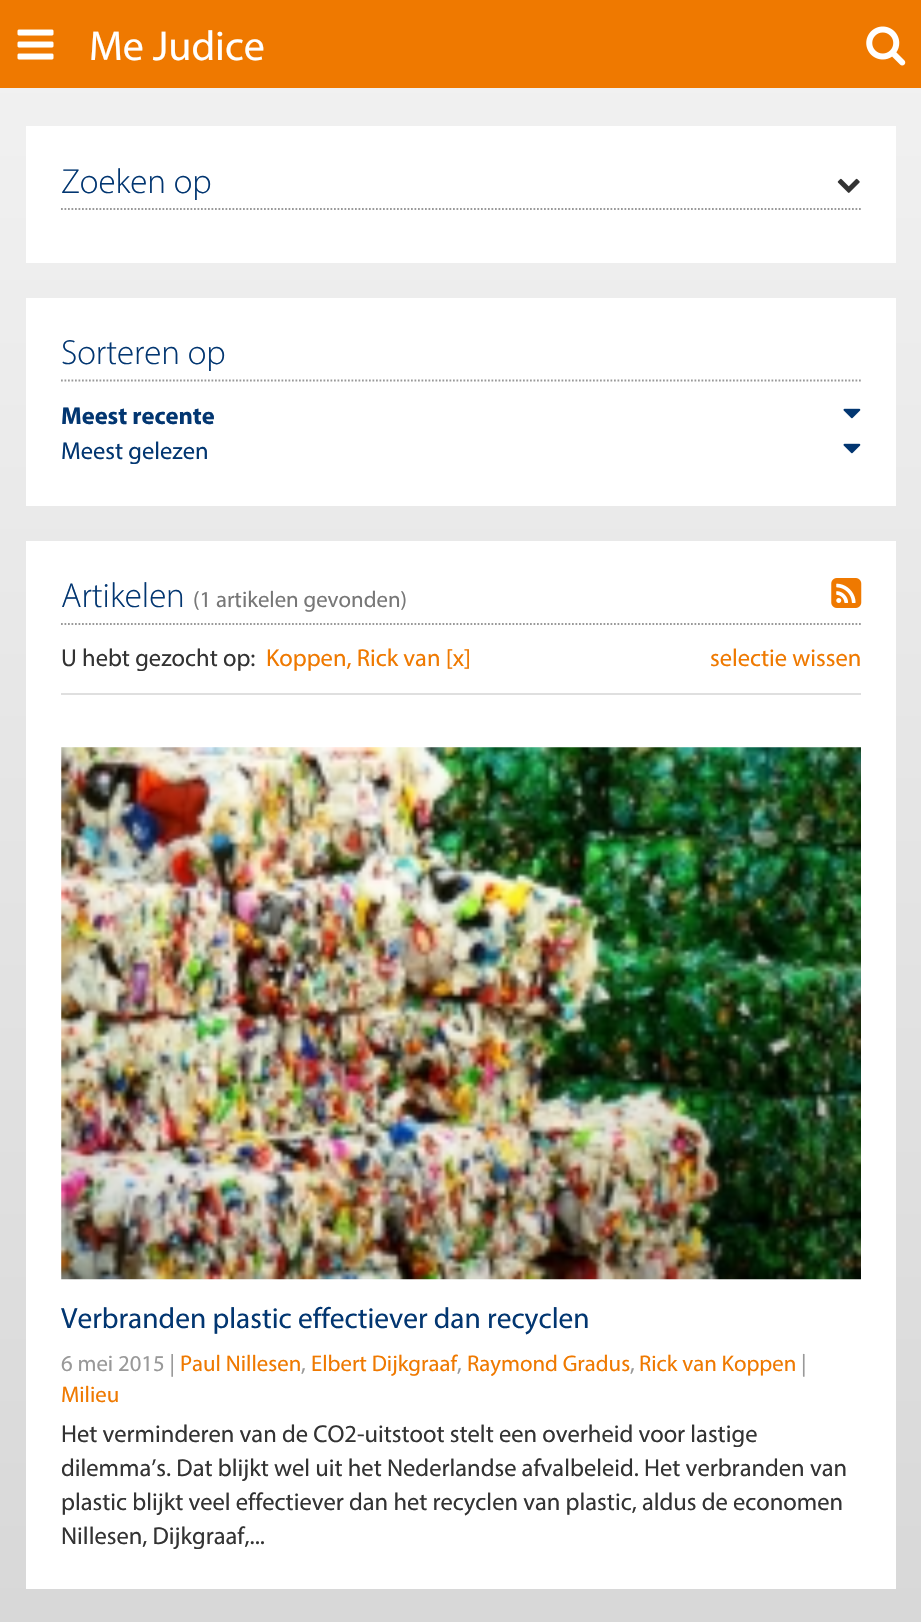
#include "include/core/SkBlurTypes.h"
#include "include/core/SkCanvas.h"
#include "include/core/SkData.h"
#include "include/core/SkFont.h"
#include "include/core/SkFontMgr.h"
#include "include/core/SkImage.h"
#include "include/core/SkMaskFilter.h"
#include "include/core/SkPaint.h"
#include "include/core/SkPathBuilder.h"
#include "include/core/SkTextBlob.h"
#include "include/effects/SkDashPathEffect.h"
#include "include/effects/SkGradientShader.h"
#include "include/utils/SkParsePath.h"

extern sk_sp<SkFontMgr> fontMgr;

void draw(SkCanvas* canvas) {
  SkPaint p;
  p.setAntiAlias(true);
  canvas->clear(SK_ColorWHITE);
  {
    const SkColor colors[] = {SkColorSetRGB(242, 242, 242), SkColorSetRGB(209, 209, 209)};
    const float stops[] = {0, 1};
    const SkPoint ends[] = {{461, 0}, {461, 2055}};
    p.setShader(SkGradientShader::MakeLinear(ends, colors, stops, 2, SkTileMode::kClamp));
    p.setAlpha(255);
  }
  canvas->drawRect(SkRect::MakeLTRB(0, 88, 921, 1622), p);
  p.setShader(nullptr);
  p.setColor(SkColorSetRGB(239, 121, 0));
  canvas->drawRect(SkRect::MakeLTRB(0, 0, 921, 88), p);
  canvas->drawImageRect(SkImages::DeferredFromEncodedData(SkData::MakeFromFileName("images/1.png")), SkRect::MakeLTRB(17, 29, 54, 60), SkSamplingOptions());
  canvas->drawImageRect(SkImages::DeferredFromEncodedData(SkData::MakeFromFileName("images/2.png")), SkRect::MakeLTRB(866, 26, 906, 66), SkSamplingOptions());
  p.setColor(SK_ColorWHITE);
  canvas->drawRect(SkRect::MakeLTRB(26, 126, 896, 263), p);
  p.setStyle(SkPaint::kStroke_Style);
  p.setStrokeWidth(1.8f);
  p.setColor(SkColorSetRGB(153, 153, 153));
  p.setPathEffect(SkDashPathEffect::Make({{1.75f, 1.75f}}, 0));
  canvas->drawPath(SkPathBuilder().moveTo(61, 209).lineTo(861, 209).detach(), p);
  p.setPathEffect(nullptr);
  canvas->drawImageRect(SkImages::DeferredFromEncodedData(SkData::MakeFromFileName("images/3.png")), SkRect::MakeLTRB(837, 178, 860, 193), SkSamplingOptions());
  p.setStyle(SkPaint::kFill_Style);
  p.setColor(SK_ColorWHITE);
  canvas->drawRect(SkRect::MakeLTRB(26, 298, 896, 506), p);
  p.setStyle(SkPaint::kStroke_Style);
  p.setColor(SkColorSetRGB(153, 153, 153));
  p.setPathEffect(SkDashPathEffect::Make({{1.75f, 1.75f}}, 0));
  canvas->drawPath(SkPathBuilder().moveTo(61, 380.5f).lineTo(861, 380.5f).detach(), p);
  p.setPathEffect(nullptr);
  canvas->drawImageRect(SkImages::DeferredFromEncodedData(SkData::MakeFromFileName("images/4.png")), SkRect::MakeLTRB(843, 408, 861, 419), SkSamplingOptions());
  canvas->drawImageRect(SkImages::DeferredFromEncodedData(SkData::MakeFromFileName("images/4.png")), SkRect::MakeLTRB(843, 443, 861, 454), SkSamplingOptions());
  p.setStyle(SkPaint::kFill_Style);
  p.setColor(SK_ColorWHITE);
  canvas->drawRect(SkRect::MakeLTRB(26, 541, 896, 1589), p);
  p.setStyle(SkPaint::kStroke_Style);
  p.setColor(SkColorSetRGB(153, 153, 153));
  p.setPathEffect(SkDashPathEffect::Make({{1.75f, 1.75f}}, 0));
  canvas->drawPath(SkPathBuilder().moveTo(61, 624).lineTo(861, 624).detach(), p);
  p.setPathEffect(nullptr);
  canvas->drawImageRect(SkImages::DeferredFromEncodedData(SkData::MakeFromFileName("images/5.png")), SkRect::MakeLTRB(831, 578, 862, 608), SkSamplingOptions());
  p.setStyle(SkPaint::kFill_Style);
  p.setColor(SkColorSetRGB(223, 223, 223));
  canvas->drawRect(SkRect::MakeLTRB(61, 693, 861, 695), p);
  canvas->drawImageRect(SkImages::DeferredFromEncodedData(SkData::MakeFromFileName("images/6.png")), SkRect::MakeLTRB(61, 747, 861, 1280), SkSamplingOptions());
  SkFont font1(fontMgr->matchFamilyStyle("Myriad", SkFontStyle::Normal()), 42);
  font1.setSubpixel(true);
  p.setColor(SK_ColorWHITE);
  canvas->drawString("Me Judice", 89, 60, font1, p);
  SkFont font2(fontMgr->matchFamilyStyle("Myriad", SkFontStyle(300, SkFontStyle::kNormal_Width, SkFontStyle::kUpright_Slant)), 35);
  font2.setSubpixel(true);
  p.setColor(SkColorSetRGB(2, 54, 113));
  canvas->drawString("Zoeken op", 61, 193, font2, p);
  canvas->drawString("Sorteren op", 61, 364, font2, p);
  SkFont font3(fontMgr->matchFamilyStyle("Myriad", SkFontStyle::Bold()), 24.5f);
  font3.setSubpixel(true);
  canvas->drawString("Meest recente", 61, 424, font3, p);
  SkFont font4(fontMgr->matchFamilyStyle("Myriad", SkFontStyle::Normal()), 24.5f);
  font4.setSubpixel(true);
  canvas->drawString("Meest gelezen", 61, 459, font4, p);
  canvas->drawString("Artikelen", 61, 607, font2, p);
  SkFont font5(fontMgr->matchFamilyStyle("Myriad", SkFontStyle::Normal()), 22.75f);
  font5.setSubpixel(true);
  p.setColor(SkColorSetRGB(119, 119, 119));
  canvas->drawString("(1 artikelen gevonden)", 193, 607, font5, p);
  p.setColor(SkColorSetRGB(51, 51, 51));
  canvas->drawString("U hebt gezocht op:", 61, 666, font4, p);
  p.setColor(SkColorSetRGB(239, 121, 0));
  canvas->drawString("Koppen, Rick van [x]", 266, 666, font4, p);
  canvas->drawString("selectie wissen", 710, 666, font4, p);
  SkFont font6(fontMgr->matchFamilyStyle("Myriad", SkFontStyle::Normal()), 29.4f);
  font6.setSubpixel(true);
  p.setColor(SkColorSetRGB(2, 54, 113));
  canvas->drawString("Verbranden plastic effectiever dan recyclen", 61, 1328, font6, p);
  p.setColor(SkColorSetRGB(153, 153, 153));
  canvas->drawString("6 mei 2015 |", 61, 1371, font5, p);
  canvas->drawString("|", 801, 1371, font5, p);
  p.setColor(SkColorSetRGB(239, 121, 0));
  canvas->drawString("Milieu", 61, 1402, font5, p);
  canvas->drawString("Paul Nillesen", 180, 1371, font5, p);
  p.setColor(SkColorSetRGB(153, 153, 153));
  canvas->drawString(",", 301, 1371, font5, p);
  p.setColor(SkColorSetRGB(239, 121, 0));
  canvas->drawString("Elbert Dijkgraaf", 311, 1371, font5, p);
  p.setColor(SkColorSetRGB(153, 153, 153));
  canvas->drawString(",", 457, 1371, font5, p);
  p.setColor(SkColorSetRGB(239, 121, 0));
  canvas->drawString("Raymond Gradus", 467, 1371, font5, p);
  p.setColor(SkColorSetRGB(153, 153, 153));
  canvas->drawString(",", 630, 1371, font5, p);
  p.setColor(SkColorSetRGB(239, 121, 0));
  canvas->drawString("Rick van Koppen", 639, 1371, font5, p);
  p.setColor(SkColorSetRGB(51, 51, 51));
  canvas->drawString("Het verminderen van de CO2-uitstoot stelt een overheid voor lastige", 61, 1442, font4, p);
  canvas->drawString("dilemma’s. Dat blijkt wel uit het Nederlandse afvalbeleid. Het verbranden van", 61, 1476, font4, p);
  canvas->drawString("plastic blijkt veel effectiever dan het recyclen van plastic, aldus de economen", 61, 1510, font4, p);
  canvas->drawString("Nillesen, Dijkgraaf,...", 61, 1544, font4, p);
}
